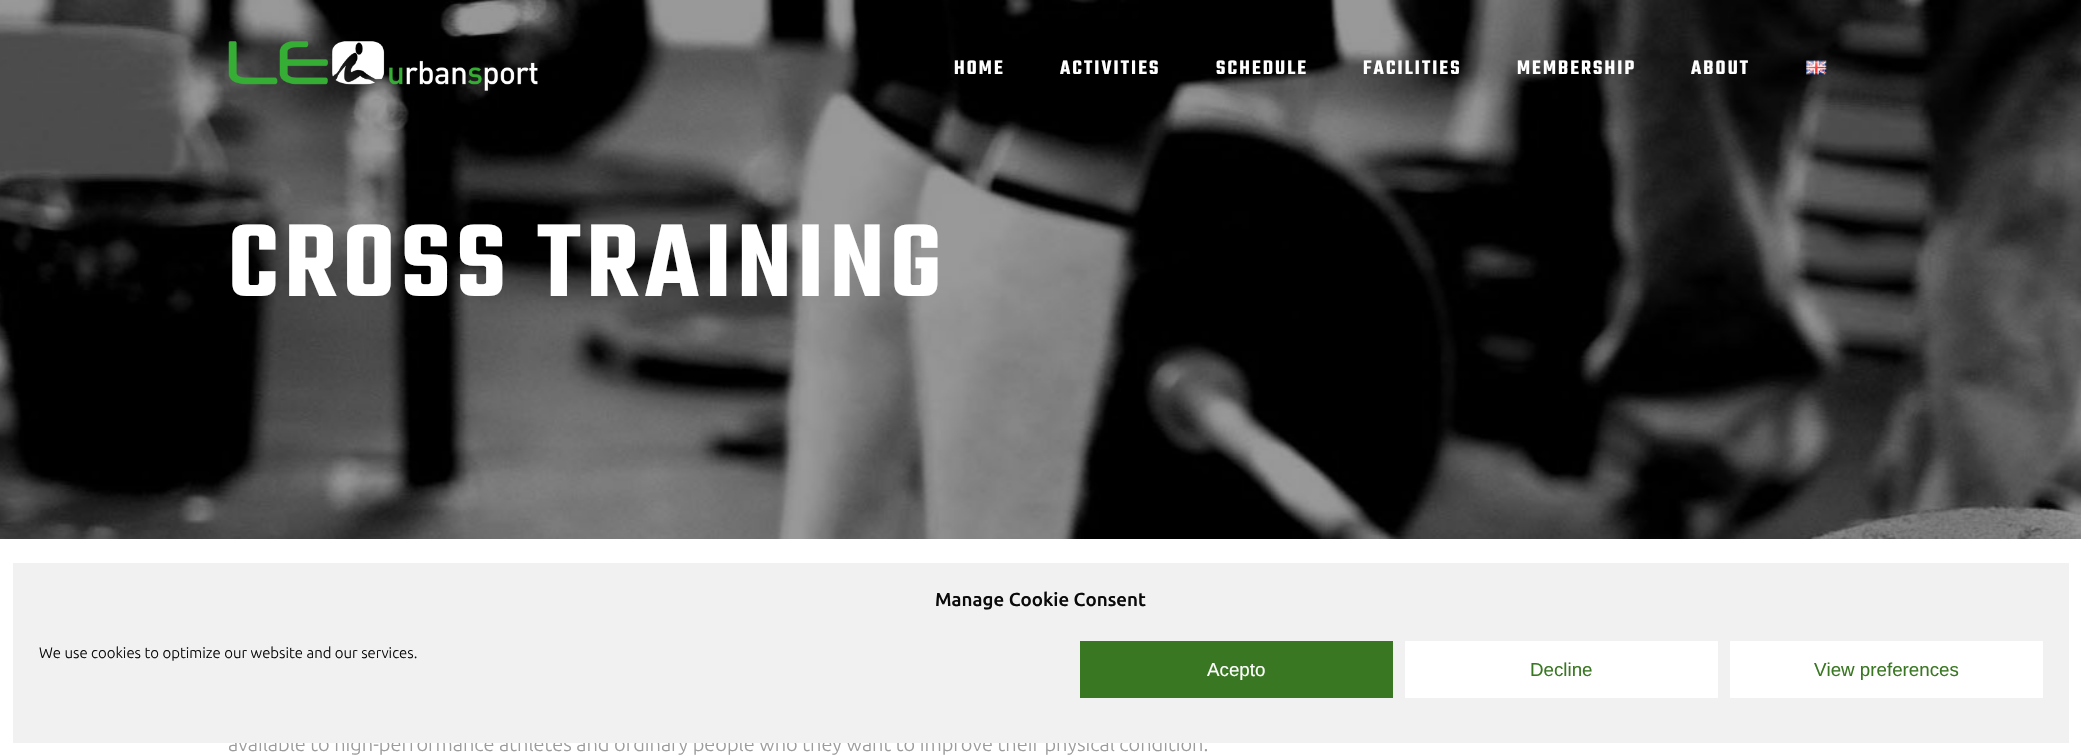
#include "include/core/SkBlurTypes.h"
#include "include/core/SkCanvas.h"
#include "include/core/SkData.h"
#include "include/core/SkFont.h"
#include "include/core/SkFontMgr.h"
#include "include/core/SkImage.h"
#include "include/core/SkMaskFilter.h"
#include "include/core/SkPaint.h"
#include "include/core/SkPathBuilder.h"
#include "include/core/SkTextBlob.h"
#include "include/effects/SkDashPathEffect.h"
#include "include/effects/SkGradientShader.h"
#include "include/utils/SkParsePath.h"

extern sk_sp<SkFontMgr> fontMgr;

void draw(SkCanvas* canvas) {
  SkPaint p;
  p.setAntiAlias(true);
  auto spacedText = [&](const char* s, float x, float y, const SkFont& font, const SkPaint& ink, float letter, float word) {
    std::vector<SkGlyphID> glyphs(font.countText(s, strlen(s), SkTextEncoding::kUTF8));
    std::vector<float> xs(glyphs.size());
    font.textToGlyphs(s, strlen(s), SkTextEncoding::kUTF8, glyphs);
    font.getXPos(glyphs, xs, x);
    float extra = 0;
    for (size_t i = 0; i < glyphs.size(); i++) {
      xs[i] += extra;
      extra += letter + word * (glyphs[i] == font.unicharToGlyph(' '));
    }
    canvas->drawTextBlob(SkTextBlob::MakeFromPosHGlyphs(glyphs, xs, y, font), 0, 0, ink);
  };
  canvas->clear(SK_ColorWHITE);
  canvas->drawImageRect(SkImages::DeferredFromEncodedData(SkData::MakeFromFileName("images/3.png")), SkRect::MakeLTRB(0, 0, 2081, 539), SkSamplingOptions());
  canvas->drawImageRect(SkImages::DeferredFromEncodedData(SkData::MakeFromFileName("images/1.png")), SkRect::MakeLTRB(228, 41, 538, 91), SkSamplingOptions());
  canvas->drawImageRect(SkImages::DeferredFromEncodedData(SkData::MakeFromFileName("images/2.png")), SkRect::MakeLTRB(1806, 60, 1827, 75), SkSamplingOptions());
  SkFont font1(fontMgr->matchFamilyStyle("Teko", SkFontStyle(600, SkFontStyle::kNormal_Width, SkFontStyle::kUpright_Slant)), 21.25f);
  font1.setSubpixel(true);
  p.setColor(SK_ColorWHITE);
  spacedText("HOME", 954, 74, font1, p, 2.1f, 0);
  spacedText("ACTIVITIES", 1060, 74, font1, p, 2.1f, 0);
  spacedText("SCHEDULE", 1216, 74, font1, p, 2.1f, 0);
  spacedText("FACILITIES", 1363, 74, font1, p, 2.1f, 0);
  spacedText("MEMBERSHIP", 1517, 74, font1, p, 2.1f, 0);
  spacedText("ABOUT", 1691, 74, font1, p, 2.1f, 0);
  SkFont font2(fontMgr->matchFamilyStyle("Teko", SkFontStyle(600, SkFontStyle::kNormal_Width, SkFontStyle::kUpright_Slant)), 112.5f);
  font2.setSubpixel(true);
  spacedText("CROSS TRAINING", 228, 296, font2, p, 5.6f, 0);
  SkFont font3(fontMgr->matchFamilyStyle("Ubuntu", SkFontStyle(300, SkFontStyle::kNormal_Width, SkFontStyle::kUpright_Slant)), 20);
  font3.setSubpixel(true);
  p.setColor(SkColorSetRGB(156, 156, 156));
  canvas->drawString("available to high-performance athletes and ordinary people who they want to improve their physical condition.", 228, 751, font3, p);
  p.setColor(SkColorSetRGB(241, 241, 241));
  canvas->drawRect(SkRect::MakeLTRB(13, 563, 2069, 743), p);
  SkFont font4(fontMgr->matchFamilyStyle("Ubuntu", SkFontStyle(500, SkFontStyle::kNormal_Width, SkFontStyle::kUpright_Slant)), 18.75f);
  font4.setSubpixel(true);
  p.setColor(SkColorSetRGB(10, 10, 10));
  canvas->drawString("Manage Cookie Consent", 935, 606, font4, p);
  SkFont font5(fontMgr->matchFamilyStyle("Ubuntu", SkFontStyle(300, SkFontStyle::kNormal_Width, SkFontStyle::kUpright_Slant)), 15);
  font5.setSubpixel(true);
  canvas->drawString("We use cookies to optimize our website and our services.", 39, 658, font5, p);
  p.setColor(SkColorSetRGB(57, 119, 34));
  canvas->drawRect(SkRect::MakeLTRB(1080, 641, 1393, 698), p);
  SkFont font6(fontMgr->matchFamilyStyle("Liberation Sans", SkFontStyle::Normal()), 18.75f);
  font6.setSubpixel(true);
  p.setColor(SK_ColorWHITE);
  canvas->drawString("Acepto", 1207, 676, font6, p);
  canvas->drawRect(SkRect::MakeLTRB(1405, 641, 1718, 698), p);
  p.setColor(SkColorSetRGB(57, 119, 34));
  canvas->drawString("Decline", 1530, 676, font6, p);
  p.setColor(SK_ColorWHITE);
  canvas->drawRect(SkRect::MakeLTRB(1730, 641, 2043, 698), p);
  p.setColor(SkColorSetRGB(57, 119, 34));
  canvas->drawString("View preferences", 1814, 676, font6, p);
}
